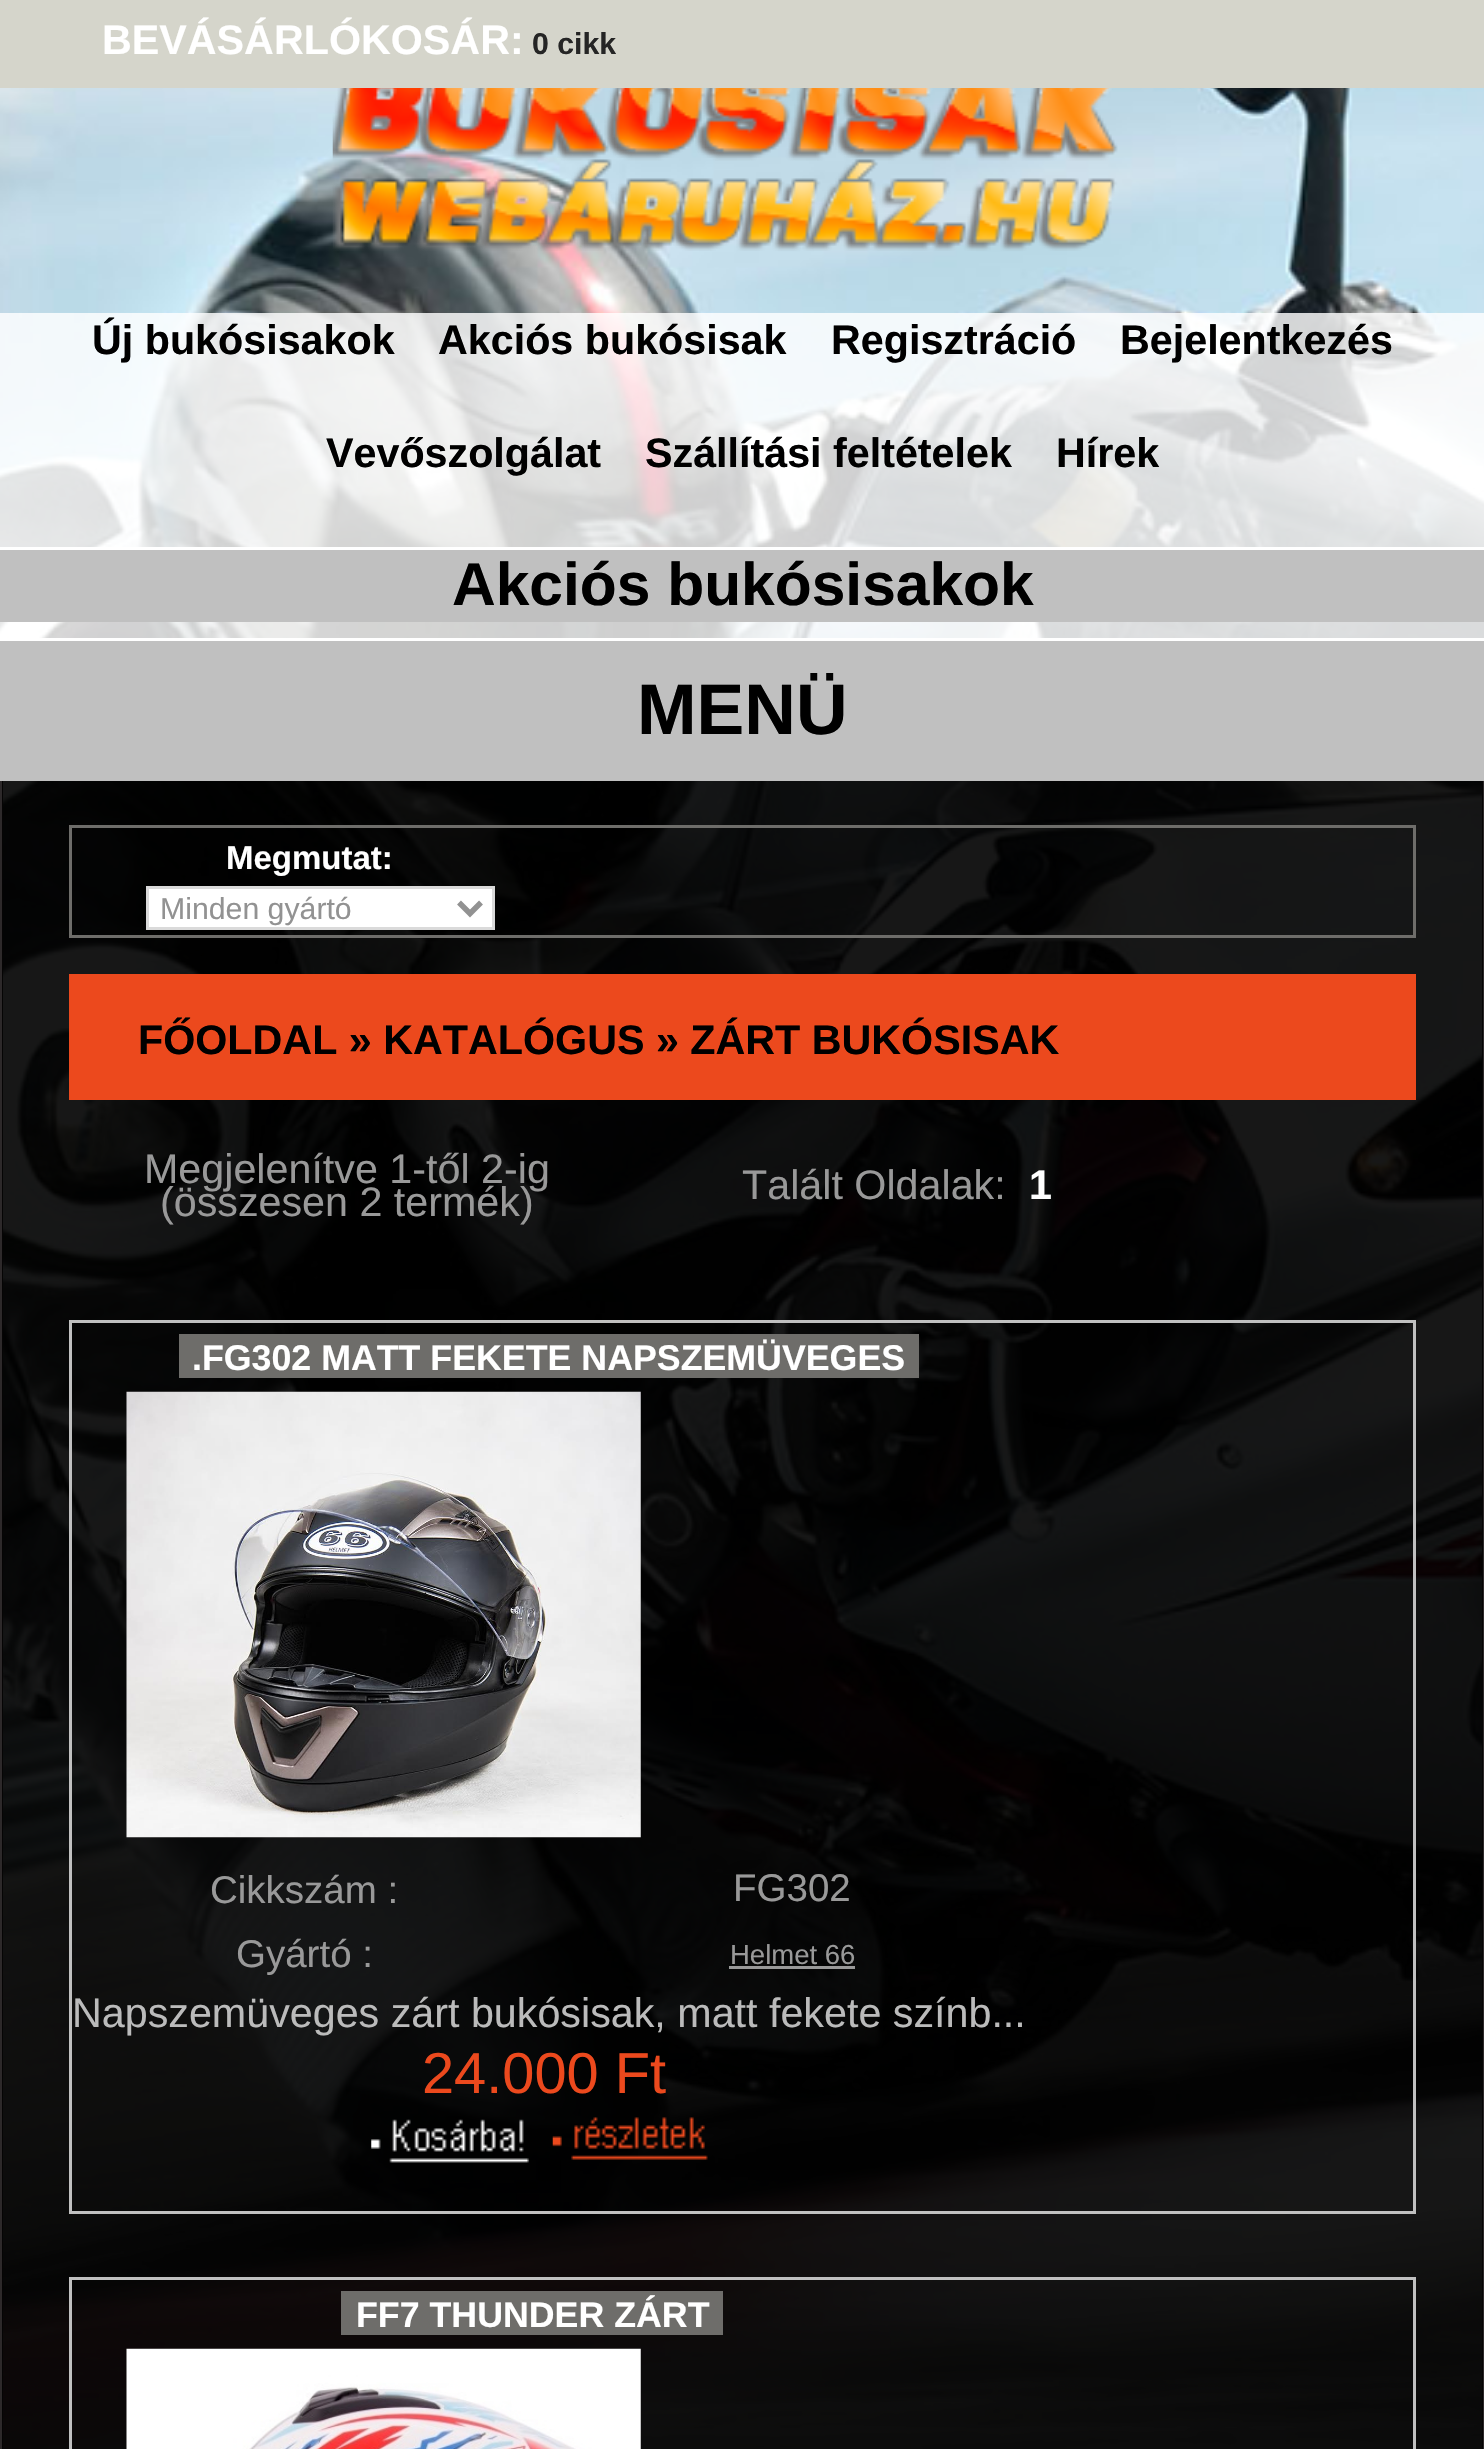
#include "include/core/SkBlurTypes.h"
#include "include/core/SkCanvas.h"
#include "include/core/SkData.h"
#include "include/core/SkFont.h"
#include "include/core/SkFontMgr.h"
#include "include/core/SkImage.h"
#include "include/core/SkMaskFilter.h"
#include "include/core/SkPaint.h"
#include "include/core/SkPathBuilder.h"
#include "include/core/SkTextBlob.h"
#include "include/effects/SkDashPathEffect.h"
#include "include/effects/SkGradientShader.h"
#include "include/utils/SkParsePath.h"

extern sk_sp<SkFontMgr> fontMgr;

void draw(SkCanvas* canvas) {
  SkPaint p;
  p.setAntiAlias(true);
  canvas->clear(SK_ColorWHITE);
  canvas->drawImageRect(SkImages::DeferredFromEncodedData(SkData::MakeFromFileName("images/1.png")), SkRect::MakeLTRB(0, 88, 1484, 2449), SkSamplingOptions());
  p.setColor(SkColorSetRGB(213, 213, 203));
  canvas->drawRect(SkRect::MakeLTRB(0, 0, 1484, 88), p);
  canvas->drawImageRect(SkImages::DeferredFromEncodedData(SkData::MakeFromFileName("images/2.png")), SkRect::MakeLTRB(332, 88, 1118, 251), SkSamplingOptions());
  p.setColor(SkColorSetARGB(207, 255, 255, 255));
  canvas->drawRect(SkRect::MakeLTRB(0, 313, 1484, 638), p);
  p.setColor(SkColorSetRGB(192, 192, 192));
  canvas->drawRect(SkRect::MakeLTRB(0, 550, 1484, 622), p);
  p.setColor(SK_ColorWHITE);
  canvas->drawRect(SkRect::MakeLTRB(0, 547, 1484, 550), p);
  p.setStyle(SkPaint::kStroke_Style);
  p.setStrokeWidth(3);
  p.setColor(SkColorSetRGB(45, 41, 42));
  canvas->drawRect(SkRect::MakeLTRB(1.5f, 771.5f, 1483.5f, 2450.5f), p);
  p.setStyle(SkPaint::kFill_Style);
  p.setColor(SkColorSetARGB(232, 0, 0, 0));
  canvas->drawRect(SkRect::MakeLTRB(2, 781, 1483, 2449), p);
  p.setColor(SkColorSetRGB(192, 192, 192));
  canvas->drawRect(SkRect::MakeLTRB(0, 641, 1484, 781), p);
  p.setColor(SK_ColorWHITE);
  canvas->drawRect(SkRect::MakeLTRB(0, 638, 1484, 641), p);
  p.setStyle(SkPaint::kStroke_Style);
  p.setColor(SkColorSetRGB(110, 109, 106));
  canvas->drawRect(SkRect::MakeLTRB(70.5f, 826.5f, 1414.5f, 936.5f), p);
  p.setStyle(SkPaint::kFill_Style);
  p.setColor(SK_ColorWHITE);
  canvas->drawRect(SkRect::MakeLTRB(147.5f, 887.5f, 493.5f, 928.5f), p);
  p.setStyle(SkPaint::kStroke_Style);
  p.setColor(SkColorSetRGB(218, 218, 218));
  canvas->drawRect(SkRect::MakeLTRB(147.5f, 887.5f, 493.5f, 928.5f), p);
  p.setStrokeWidth(5.5f);
  p.setColor(SkColorSetRGB(146, 146, 146));
  canvas->drawPath(SkPathBuilder().moveTo(459, 902.5f).lineTo(470, 913.5f).lineTo(481, 902.5f).detach(), p);
  p.setStyle(SkPaint::kFill_Style);
  p.setColor(SkColorSetRGB(236, 73, 29));
  canvas->drawRect(SkRect::MakeLTRB(69, 974, 1416, 1100), p);
  p.setStyle(SkPaint::kStroke_Style);
  p.setStrokeWidth(3);
  p.setColor(SkColorSetRGB(192, 192, 192));
  canvas->drawRect(SkRect::MakeLTRB(70.5f, 1321.5f, 1414.5f, 2212.5f), p);
  p.setStyle(SkPaint::kFill_Style);
  p.setColor(SkColorSetRGB(110, 109, 106));
  canvas->drawRect(SkRect::MakeLTRB(179, 1334, 919, 1378), p);
  canvas->drawImageRect(SkImages::DeferredFromEncodedData(SkData::MakeFromFileName("images/3.png")), SkRect::MakeLTRB(126, 1391, 641, 1838), SkSamplingOptions());
  p.setColor(SkColorSetRGB(153, 153, 153));
  canvas->drawRect(SkRect::MakeLTRB(729, 1966, 855, 1969), p);
  canvas->drawImageRect(SkImages::DeferredFromEncodedData(SkData::MakeFromFileName("images/4.png")), SkRect::MakeLTRB(371, 2119, 529, 2163), SkSamplingOptions());
  canvas->drawImageRect(SkImages::DeferredFromEncodedData(SkData::MakeFromFileName("images/5.png")), SkRect::MakeLTRB(552, 2117, 708, 2160), SkSamplingOptions());
  p.setStyle(SkPaint::kStroke_Style);
  p.setColor(SkColorSetRGB(192, 192, 192));
  canvas->drawRect(SkRect::MakeLTRB(70.5f, 2278.5f, 1414.5f, 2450.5f), p);
  p.setStyle(SkPaint::kFill_Style);
  p.setColor(SkColorSetRGB(110, 109, 106));
  canvas->drawRect(SkRect::MakeLTRB(341, 2291, 723, 2335), p);
  canvas->drawImageRect(SkImages::DeferredFromEncodedData(SkData::MakeFromFileName("images/6.png")), SkRect::MakeLTRB(126, 2348, 641, 2449), SkSamplingOptions());
  SkFont font1(fontMgr->matchFamilyStyle("Liberation Sans", SkFontStyle::Bold()), 41.25f);
  font1.setSubpixel(true);
  p.setColor(SK_ColorWHITE);
  canvas->drawString("BEVÁSÁRLÓKOSÁR:", 102, 54, font1, p);
  SkFont font2(fontMgr->matchFamilyStyle("Liberation Sans", SkFontStyle::Bold()), 30.25f);
  font2.setSubpixel(true);
  p.setColor(SkColorSetRGB(37, 37, 37));
  canvas->drawString("0 cikk", 532, 54, font2, p);
  p.setColor(SK_ColorBLACK);
  canvas->drawString("Új bukósisakok", 92, 354, font1, p);
  canvas->drawString("Akciós bukósisak", 438, 354, font1, p);
  canvas->drawString("Regisztráció", 831, 354, font1, p);
  canvas->drawString("Bejelentkezés", 1120, 354, font1, p);
  canvas->drawString("Vevőszolgálat", 326, 467, font1, p);
  canvas->drawString("Szállítási feltételek", 645, 467, font1, p);
  canvas->drawString("Hírek", 1056, 467, font1, p);
  SkFont font3(fontMgr->matchFamilyStyle("Liberation Sans", SkFontStyle::Bold()), 60.5f);
  font3.setSubpixel(true);
  canvas->drawString("Akciós bukósisakok", 452, 605, font3, p);
  SkFont font4(fontMgr->matchFamilyStyle("Liberation Sans", SkFontStyle::Bold()), 71.5f);
  font4.setSubpixel(true);
  canvas->drawString("MENÜ", 637, 734, font4, p);
  SkFont font5(fontMgr->matchFamilyStyle("Liberation Sans", SkFontStyle::Bold()), 33);
  font5.setSubpixel(true);
  p.setColor(SK_ColorWHITE);
  canvas->drawString("Megmutat:", 226, 869, font5, p);
  SkFont font6(fontMgr->matchFamilyStyle("Liberation Sans", SkFontStyle::Normal()), 30.25f);
  font6.setSubpixel(true);
  p.setColor(SkColorSetRGB(146, 146, 146));
  canvas->drawString("Minden gyártó", 160, 919, font6, p);
  p.setColor(SK_ColorBLACK);
  canvas->drawString("FŐOLDAL » KATALÓGUS » ZÁRT BUKÓSISAK", 138, 1054, font1, p);
  SkFont font7(fontMgr->matchFamilyStyle("Liberation Sans", SkFontStyle::Normal()), 41.25f);
  font7.setSubpixel(true);
  p.setColor(SkColorSetRGB(153, 153, 153));
  canvas->drawString("Megjelenítve 1-től 2-ig", 144, 1183, font7, p);
  canvas->drawString("(összesen 2 termék)", 160, 1216, font7, p);
  canvas->drawString("Talált Oldalak:", 742, 1199, font7, p);
  p.setColor(SK_ColorWHITE);
  canvas->drawString("1", 1029, 1199, font1, p);
  SkFont font8(fontMgr->matchFamilyStyle("Liberation Sans", SkFontStyle::Bold()), 35.75f);
  font8.setSubpixel(true);
  canvas->drawString(".FG302 MATT FEKETE NAPSZEMÜVEGES", 192, 1370, font8, p);
  SkFont font9(fontMgr->matchFamilyStyle("Liberation Sans", SkFontStyle::Normal()), 38.5f);
  font9.setSubpixel(true);
  p.setColor(SkColorSetRGB(153, 153, 153));
  canvas->drawString("Cikkszám :", 210, 1903, font9, p);
  canvas->drawString("FG302", 733, 1901, font9, p);
  canvas->drawString("Gyártó :", 236, 1967, font9, p);
  SkFont font10(fontMgr->matchFamilyStyle("Liberation Sans", SkFontStyle::Normal()), 27.5f);
  font10.setSubpixel(true);
  canvas->drawString("Helmet 66", 730, 1964, font10, p);
  p.setColor(SkColorSetRGB(187, 187, 187));
  canvas->drawString("Napszemüveges zárt bukósisak, matt fekete színb...", 72, 2027, font7, p);
  SkFont font11(fontMgr->matchFamilyStyle("Liberation Sans", SkFontStyle::Normal()), 57.75f);
  font11.setSubpixel(true);
  p.setColor(SkColorSetRGB(236, 73, 29));
  canvas->drawString("24.000 Ft", 422, 2093, font11, p);
  p.setColor(SK_ColorWHITE);
  canvas->drawString("FF7 THUNDER ZÁRT", 356, 2327, font8, p);
}
